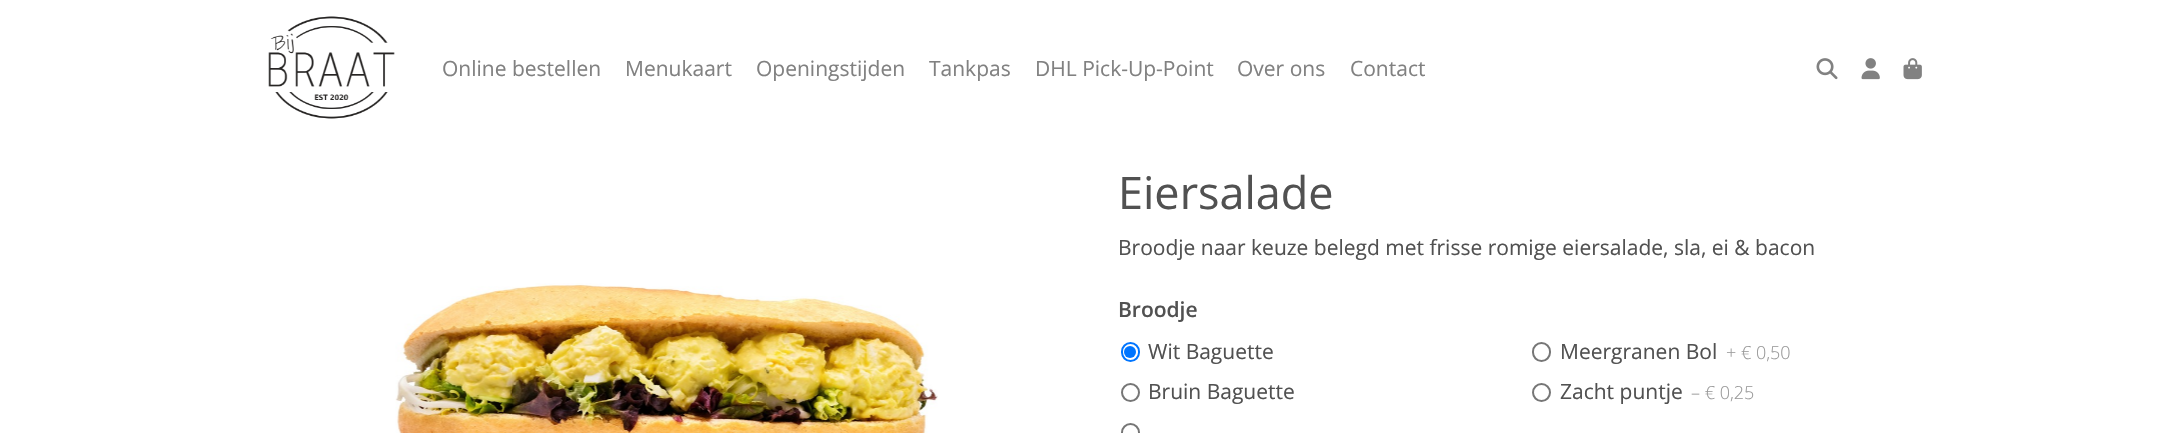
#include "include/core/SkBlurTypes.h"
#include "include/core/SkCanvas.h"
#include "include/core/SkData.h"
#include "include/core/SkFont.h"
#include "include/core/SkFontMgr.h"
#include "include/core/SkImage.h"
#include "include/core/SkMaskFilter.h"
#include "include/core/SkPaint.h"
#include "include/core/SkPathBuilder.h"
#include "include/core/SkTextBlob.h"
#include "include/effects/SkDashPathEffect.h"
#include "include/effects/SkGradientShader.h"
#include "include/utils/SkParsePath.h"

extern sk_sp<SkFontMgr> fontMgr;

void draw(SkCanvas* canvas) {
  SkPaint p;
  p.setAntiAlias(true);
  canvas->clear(SK_ColorWHITE);
  canvas->drawImageRect(SkImages::DeferredFromEncodedData(SkData::MakeFromFileName("images/1.png")), SkRect::MakeLTRB(268, 16, 395, 119), SkSamplingOptions());
  canvas->drawImageRect(SkImages::DeferredFromEncodedData(SkData::MakeFromFileName("images/2.png")), SkRect::MakeLTRB(1816, 58, 1838, 80), SkSamplingOptions());
  canvas->drawImageRect(SkImages::DeferredFromEncodedData(SkData::MakeFromFileName("images/3.png")), SkRect::MakeLTRB(1861, 58, 1880, 80), SkSamplingOptions());
  canvas->drawImageRect(SkImages::DeferredFromEncodedData(SkData::MakeFromFileName("images/4.png")), SkRect::MakeLTRB(1903, 58, 1922, 80), SkSamplingOptions());
  canvas->drawImageRect(SkImages::DeferredFromEncodedData(SkData::MakeFromFileName("images/5.png")), SkRect::MakeLTRB(395, 283, 938, 433), SkSamplingOptions());
  p.setStyle(SkPaint::kStroke_Style);
  p.setStrokeWidth(2);
  p.setColor(SkColorSetRGB(0, 117, 255));
  canvas->drawRoundRect(SkRect::MakeLTRB(1122, 343, 1139, 361), 8.5f, 8.5f, p);
  p.setStyle(SkPaint::kFill_Style);
  canvas->drawCircle(1130, 352, 6, p);
  p.setStyle(SkPaint::kStroke_Style);
  p.setColor(SkColorSetRGB(118, 118, 118));
  canvas->drawRoundRect(SkRect::MakeLTRB(1533, 343, 1550, 361), 8.5f, 8.5f, p);
  canvas->drawCircle(1130.5f, 392.5f, 8.5f, p);
  canvas->drawCircle(1541.5f, 392.5f, 8.5f, p);
  canvas->drawRoundRect(SkRect::MakeLTRB(1122, 424, 1139, 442), 8.5f, 8.5f, p);
  SkFont font1(fontMgr->matchFamilyStyle("Open Sans", SkFontStyle::Normal()), 21);
  font1.setSubpixel(true);
  p.setStyle(SkPaint::kFill_Style);
  p.setColor(SkColorSetRGB(129, 129, 129));
  canvas->drawString("Online bestellen", 442, 76, font1, p);
  canvas->drawString("Menukaart", 625, 76, font1, p);
  canvas->drawString("Openingstijden", 756, 76, font1, p);
  canvas->drawString("Tankpas", 929, 76, font1, p);
  canvas->drawString("DHL Pick-Up-Point", 1035, 76, font1, p);
  canvas->drawString("Over ons", 1237, 76, font1, p);
  canvas->drawString("Contact", 1350, 76, font1, p);
  SkFont font2(fontMgr->matchFamilyStyle("Open Sans", SkFontStyle::Normal()), 45);
  font2.setSubpixel(true);
  p.setColor(SkColorSetRGB(81, 81, 81));
  canvas->drawString("Eiersalade", 1118, 209, font2, p);
  canvas->drawString("Broodje naar keuze belegd met frisse romige eiersalade, sla, ei & bacon", 1118, 255, font1, p);
  SkFont font3(fontMgr->matchFamilyStyle("Open Sans", SkFontStyle(600, SkFontStyle::kNormal_Width, SkFontStyle::kUpright_Slant)), 21);
  font3.setSubpixel(true);
  canvas->drawString("Broodje", 1118, 317, font3, p);
  canvas->drawString("Wit Baguette", 1148, 359, font1, p);
  canvas->drawString("Meergranen Bol", 1560, 359, font1, p);
  SkFont font4(fontMgr->matchFamilyStyle("Open Sans", SkFontStyle(300, SkFontStyle::kNormal_Width, SkFontStyle::kUpright_Slant)), 18);
  font4.setSubpixel(true);
  p.setColor(SkColorSetRGB(153, 153, 153));
  canvas->drawString("+ € 0,50", 1726, 359, font4, p);
  p.setColor(SkColorSetRGB(81, 81, 81));
  canvas->drawString("Bruin Baguette", 1148, 399, font1, p);
  canvas->drawString("Zacht puntje", 1560, 399, font1, p);
  p.setColor(SkColorSetRGB(153, 153, 153));
  canvas->drawString("– € 0,25", 1691, 399, font4, p);
}
